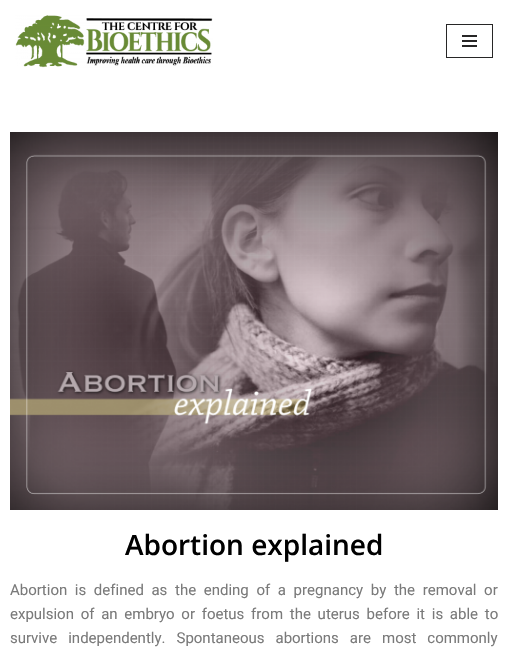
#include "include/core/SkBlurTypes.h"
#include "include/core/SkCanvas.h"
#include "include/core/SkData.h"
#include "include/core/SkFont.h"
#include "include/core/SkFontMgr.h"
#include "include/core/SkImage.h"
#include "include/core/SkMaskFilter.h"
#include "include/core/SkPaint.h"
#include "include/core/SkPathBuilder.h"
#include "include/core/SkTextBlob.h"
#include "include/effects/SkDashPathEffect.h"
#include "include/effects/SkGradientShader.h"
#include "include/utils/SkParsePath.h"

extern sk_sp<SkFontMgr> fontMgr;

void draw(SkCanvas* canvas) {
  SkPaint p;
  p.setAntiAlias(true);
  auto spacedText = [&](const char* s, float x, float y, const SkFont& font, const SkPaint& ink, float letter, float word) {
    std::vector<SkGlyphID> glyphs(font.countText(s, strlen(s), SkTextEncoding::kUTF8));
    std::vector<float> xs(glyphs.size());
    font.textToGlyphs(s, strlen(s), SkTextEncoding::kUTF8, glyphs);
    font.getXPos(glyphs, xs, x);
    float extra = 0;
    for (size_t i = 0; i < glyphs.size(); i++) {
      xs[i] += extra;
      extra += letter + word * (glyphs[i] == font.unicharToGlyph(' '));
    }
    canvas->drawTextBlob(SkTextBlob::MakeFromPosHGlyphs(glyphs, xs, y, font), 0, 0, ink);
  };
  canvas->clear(SK_ColorWHITE);
  canvas->drawImageRect(SkImages::DeferredFromEncodedData(SkData::MakeFromFileName("images/1.png")), SkRect::MakeLTRB(15, 15, 213, 68), SkSamplingOptions());
  p.setStyle(SkPaint::kStroke_Style);
  p.setStrokeWidth(1);
  p.setColor(SkColorSetRGB(39, 38, 38));
  canvas->drawRect(SkRect::MakeLTRB(446.5f, 24.5f, 492.5f, 57.5f), p);
  p.setStyle(SkPaint::kFill_Style);
  canvas->drawRect(SkRect::MakeLTRB(462, 35, 477, 37), p);
  canvas->drawRect(SkRect::MakeLTRB(462, 40, 477, 42), p);
  canvas->drawRect(SkRect::MakeLTRB(462, 45, 477, 47), p);
  canvas->drawImageRect(SkImages::DeferredFromEncodedData(SkData::MakeFromFileName("images/2.png")), SkRect::MakeLTRB(10, 132, 498, 510), SkSamplingOptions());
  SkFont font1(fontMgr->matchFamilyStyle("Open Sans", SkFontStyle(600, SkFontStyle::kNormal_Width, SkFontStyle::kUpright_Slant)), 28);
  font1.setSubpixel(true);
  p.setColor(SK_ColorBLACK);
  canvas->drawString("Abortion explained", 125, 555, font1, p);
  SkFont font2(fontMgr->matchFamilyStyle("Roboto", SkFontStyle::Normal()), 15);
  font2.setSubpixel(true);
  p.setColor(SkColorSetRGB(122, 122, 122));
  spacedText("Abortion is defined as the ending of a pregnancy by the removal or", 10, 595, font2, p, 0, 3.9f);
  spacedText("expulsion of an embryo or foetus from the uterus before it is able to", 10, 619, font2, p, 0, 3);
  spacedText("survive independently. Spontaneous abortions are most commonly", 10, 643, font2, p, 0, 7.25f);
}
